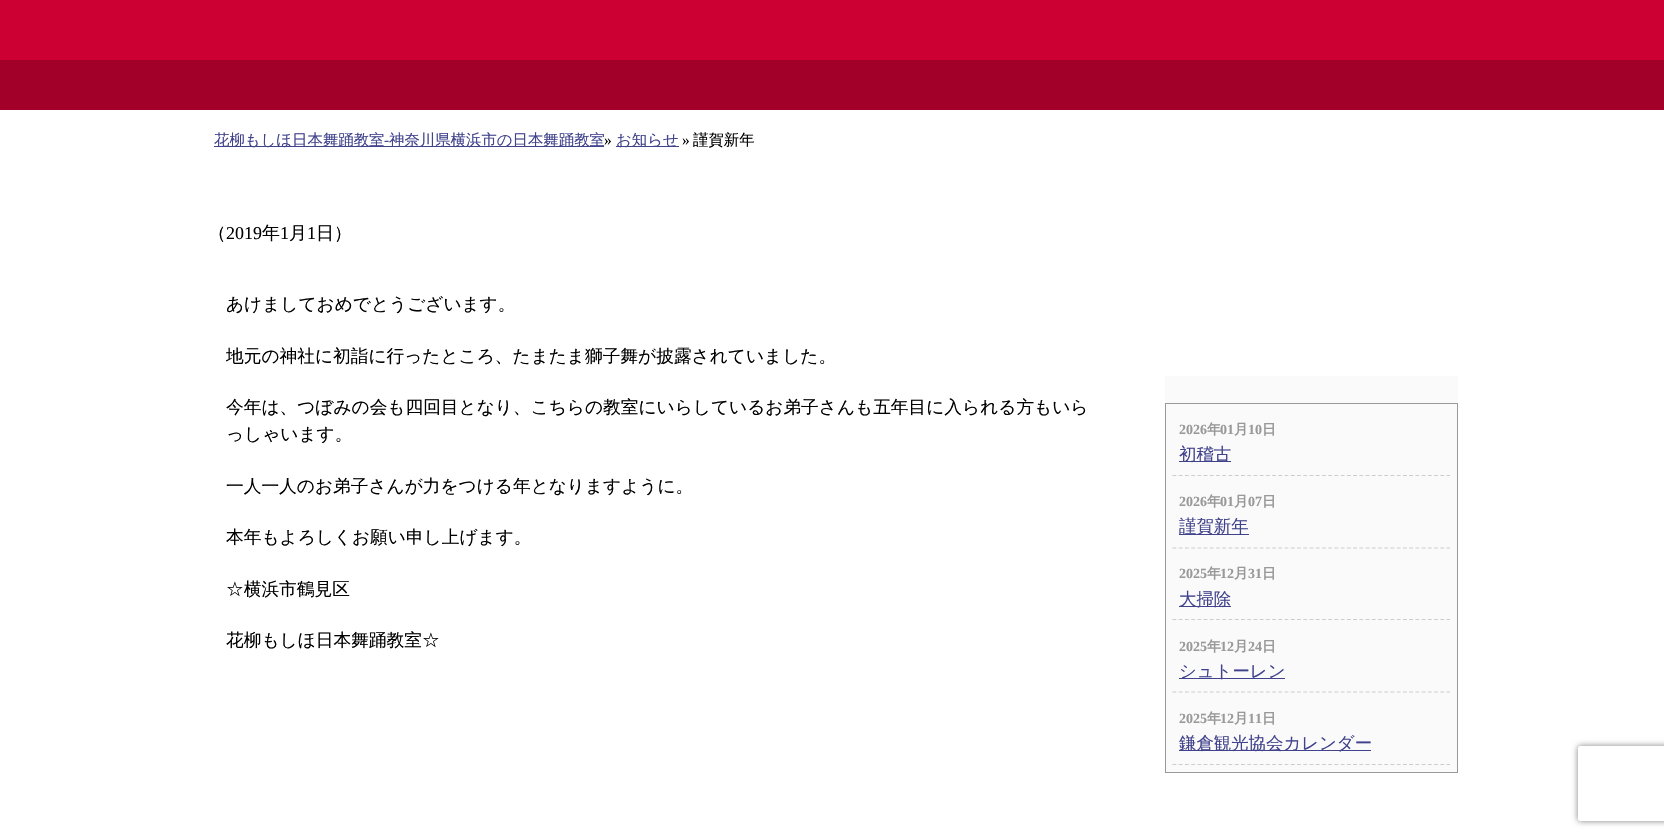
#include "include/core/SkBlurTypes.h"
#include "include/core/SkCanvas.h"
#include "include/core/SkData.h"
#include "include/core/SkFont.h"
#include "include/core/SkFontMgr.h"
#include "include/core/SkImage.h"
#include "include/core/SkMaskFilter.h"
#include "include/core/SkPaint.h"
#include "include/core/SkPathBuilder.h"
#include "include/core/SkTextBlob.h"
#include "include/effects/SkDashPathEffect.h"
#include "include/effects/SkGradientShader.h"
#include "include/utils/SkParsePath.h"

extern sk_sp<SkFontMgr> fontMgr;

void draw(SkCanvas* canvas) {
  SkPaint p;
  p.setAntiAlias(true);
  canvas->clear(SK_ColorWHITE);
  p.setColor(SkColorSetRGB(204, 0, 51));
  canvas->drawRect(SkRect::MakeLTRB(0, 0, 1664, 60), p);
  p.setColor(SkColorSetRGB(162, 0, 40));
  canvas->drawRect(SkRect::MakeLTRB(0, 60, 1664, 110), p);
  p.setColor(SkColorSetRGB(64, 66, 140));
  canvas->drawRect(SkRect::MakeLTRB(214, 146, 604, 147), p);
  canvas->drawRect(SkRect::MakeLTRB(616, 146, 679, 147), p);
  p.setColor(SkColorSetRGB(250, 250, 250));
  canvas->drawRect(SkRect::MakeLTRB(1165, 376, 1458, 772), p);
  p.setStyle(SkPaint::kStroke_Style);
  p.setStrokeWidth(1);
  p.setColor(SkColorSetRGB(153, 153, 153));
  canvas->drawRect(SkRect::MakeLTRB(1165.5f, 403.5f, 1457.5f, 772.5f), p);
  p.setStrokeWidth(1.2f);
  p.setColor(SkColorSetRGB(204, 204, 204));
  p.setPathEffect(SkDashPathEffect::Make({{3.75f, 2.48f}}, 0));
  canvas->drawPath(SkPathBuilder().moveTo(1172.5f, 475.5f).lineTo(1450, 475.5f).detach(), p);
  p.setPathEffect(nullptr);
  p.setStyle(SkPaint::kFill_Style);
  p.setColor(SkColorSetRGB(64, 66, 140));
  canvas->drawRect(SkRect::MakeLTRB(1179, 461, 1231, 462), p);
  p.setStyle(SkPaint::kStroke_Style);
  p.setColor(SkColorSetRGB(204, 204, 204));
  p.setPathEffect(SkDashPathEffect::Make({{3.75f, 2.48f}}, 0));
  canvas->drawPath(SkPathBuilder().moveTo(1172.5f, 548).lineTo(1450, 548).detach(), p);
  p.setPathEffect(nullptr);
  p.setStyle(SkPaint::kFill_Style);
  p.setColor(SkColorSetRGB(64, 66, 140));
  canvas->drawRect(SkRect::MakeLTRB(1179, 534, 1249, 535), p);
  p.setStyle(SkPaint::kStroke_Style);
  p.setColor(SkColorSetRGB(204, 204, 204));
  p.setPathEffect(SkDashPathEffect::Make({{3.75f, 2.48f}}, 0));
  canvas->drawPath(SkPathBuilder().moveTo(1172.5f, 619.5f).lineTo(1450, 619.5f).detach(), p);
  p.setPathEffect(nullptr);
  p.setStyle(SkPaint::kFill_Style);
  p.setColor(SkColorSetRGB(64, 66, 140));
  canvas->drawRect(SkRect::MakeLTRB(1179, 606, 1231, 607), p);
  p.setStyle(SkPaint::kStroke_Style);
  p.setColor(SkColorSetRGB(204, 204, 204));
  p.setPathEffect(SkDashPathEffect::Make({{3.75f, 2.48f}}, 0));
  canvas->drawPath(SkPathBuilder().moveTo(1172.5f, 692).lineTo(1450, 692).detach(), p);
  p.setPathEffect(nullptr);
  p.setStyle(SkPaint::kFill_Style);
  p.setColor(SkColorSetRGB(64, 66, 140));
  canvas->drawRect(SkRect::MakeLTRB(1179, 678, 1285, 679), p);
  p.setStyle(SkPaint::kStroke_Style);
  p.setColor(SkColorSetRGB(204, 204, 204));
  p.setPathEffect(SkDashPathEffect::Make({{3.75f, 2.48f}}, 0));
  canvas->drawPath(SkPathBuilder().moveTo(1172.5f, 764.5f).lineTo(1450, 764.5f).detach(), p);
  p.setPathEffect(nullptr);
  p.setStyle(SkPaint::kFill_Style);
  p.setColor(SkColorSetRGB(64, 66, 140));
  canvas->drawRect(SkRect::MakeLTRB(1179, 750, 1371, 751), p);
  canvas->save();
  canvas->clipPath(SkPathBuilder(SkPathFillType::kEvenOdd).moveTo(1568, 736).lineTo(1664, 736).lineTo(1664, 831).lineTo(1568, 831).close().moveTo(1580.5f, 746).lineTo(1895.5f, 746).cubicTo(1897, 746, 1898, 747, 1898, 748.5f).lineTo(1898, 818.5f).cubicTo(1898, 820, 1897, 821, 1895.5f, 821).lineTo(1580.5f, 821).cubicTo(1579, 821, 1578, 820, 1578, 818.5f).lineTo(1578, 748.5f).cubicTo(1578, 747, 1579, 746, 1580.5f, 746).close().detach(), true);
  p.setColor(SkColorSetRGB(128, 128, 128));
  p.setMaskFilter(SkMaskFilter::MakeBlur(kNormal_SkBlurStyle, 3));
  canvas->drawRoundRect(SkRect::MakeLTRB(1578, 746, 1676, 821), 2.5f, 2.5f, p);
  p.setMaskFilter(nullptr);
  canvas->restore();
  SkFont font1(fontMgr->matchFamilyStyle("WenQuanYi Zen Hei", SkFontStyle(500, SkFontStyle::kNormal_Width, SkFontStyle::kUpright_Slant)), 15.4f);
  font1.setSubpixel(true);
  p.setColor(SkColorSetRGB(64, 66, 140));
  canvas->drawString("花柳もしほ日本舞踊教室", 214, 145, font1, p);
  SkFont font2(fontMgr->matchFamilyStyle("Liberation Serif", SkFontStyle::Normal()), 15.4f);
  font2.setSubpixel(true);
  canvas->drawString("-", 384, 145, font2, p);
  canvas->drawString("神奈川県横浜市の日本舞踊教室", 389, 145, font1, p);
  p.setColor(SK_ColorBLACK);
  canvas->drawString("»", 604, 145, font2, p);
  p.setColor(SkColorSetRGB(64, 66, 140));
  canvas->drawString("お知らせ", 616, 145, font1, p);
  p.setColor(SK_ColorBLACK);
  canvas->drawString("»", 682, 145, font2, p);
  canvas->drawString("謹賀新年", 693, 145, font1, p);
  SkFont font3(fontMgr->matchFamilyStyle("WenQuanYi Zen Hei", SkFontStyle(500, SkFontStyle::kNormal_Width, SkFontStyle::kUpright_Slant)), 18);
  font3.setSubpixel(true);
  canvas->drawString("（", 208, 239, font3, p);
  SkFont font4(fontMgr->matchFamilyStyle("Liberation Serif", SkFontStyle::Normal()), 18);
  font4.setSubpixel(true);
  canvas->drawString("2019", 226, 239, font4, p);
  canvas->drawString("年", 262, 239, font3, p);
  canvas->drawString("1", 280, 239, font4, p);
  canvas->drawString("月", 289, 239, font3, p);
  canvas->drawString("1", 307, 239, font4, p);
  canvas->drawString("日）", 316, 239, font3, p);
  SkFont font5(fontMgr->matchFamilyStyle("WenQuanYi Zen Hei", SkFontStyle(500, SkFontStyle::kNormal_Width, SkFontStyle::kUpright_Slant)), 17.7f);
  font5.setSubpixel(true);
  canvas->drawString("あけましておめでとうございます。", 226, 310, font5, p);
  canvas->drawString("地元の神社に初詣に行ったところ、たまたま獅子舞が披露されていました。", 226, 362, font5, p);
  canvas->drawString("今年は、つぼみの会も四回目となり、こちらの教室にいらしているお弟子さんも五年目に入られる方もいら", 226, 413, font5, p);
  canvas->drawString("っしゃいます。", 226, 440, font5, p);
  canvas->drawString("一人一人のお弟子さんが力をつける年となりますように。", 226, 492, font5, p);
  canvas->drawString("本年もよろしくお願い申し上げます。", 226, 543, font5, p);
  canvas->drawString("☆横浜市鶴見区", 226, 595, font5, p);
  canvas->drawString("花柳もしほ日本舞踊教室☆", 226, 646, font5, p);
  SkFont font6(fontMgr->matchFamilyStyle("Liberation Serif", SkFontStyle::Bold()), 14);
  font6.setSubpixel(true);
  p.setColor(SkColorSetRGB(153, 153, 153));
  canvas->drawString("2026", 1179, 434, font6, p);
  SkFont font7(fontMgr->matchFamilyStyle("WenQuanYi Zen Hei", SkFontStyle::Bold()), 14);
  font7.setSubpixel(true);
  canvas->drawString("年", 1207, 434, font7, p);
  canvas->drawString("01", 1220, 434, font6, p);
  canvas->drawString("月", 1234, 434, font7, p);
  canvas->drawString("10", 1248, 434, font6, p);
  canvas->drawString("日", 1262, 434, font7, p);
  SkFont font8(fontMgr->matchFamilyStyle("WenQuanYi Zen Hei", SkFontStyle(500, SkFontStyle::kNormal_Width, SkFontStyle::kUpright_Slant)), 17.4f);
  font8.setSubpixel(true);
  p.setColor(SkColorSetRGB(64, 66, 140));
  canvas->drawString("初稽古", 1179, 460, font8, p);
  p.setColor(SkColorSetRGB(153, 153, 153));
  canvas->drawString("2026", 1179, 506, font6, p);
  canvas->drawString("年", 1207, 506, font7, p);
  canvas->drawString("01", 1220, 506, font6, p);
  canvas->drawString("月", 1234, 506, font7, p);
  canvas->drawString("07", 1248, 506, font6, p);
  canvas->drawString("日", 1262, 506, font7, p);
  p.setColor(SkColorSetRGB(64, 66, 140));
  canvas->drawString("謹賀新年", 1179, 532, font8, p);
  p.setColor(SkColorSetRGB(153, 153, 153));
  canvas->drawString("2025", 1179, 578, font6, p);
  canvas->drawString("年", 1207, 578, font7, p);
  canvas->drawString("12", 1220, 578, font6, p);
  canvas->drawString("月", 1234, 578, font7, p);
  canvas->drawString("31", 1248, 578, font6, p);
  canvas->drawString("日", 1262, 578, font7, p);
  p.setColor(SkColorSetRGB(64, 66, 140));
  canvas->drawString("大掃除", 1179, 605, font8, p);
  p.setColor(SkColorSetRGB(153, 153, 153));
  canvas->drawString("2025", 1179, 651, font6, p);
  canvas->drawString("年", 1207, 651, font7, p);
  canvas->drawString("12", 1220, 651, font6, p);
  canvas->drawString("月", 1234, 651, font7, p);
  canvas->drawString("24", 1248, 651, font6, p);
  canvas->drawString("日", 1262, 651, font7, p);
  p.setColor(SkColorSetRGB(64, 66, 140));
  canvas->drawString("シュトーレン", 1179, 677, font8, p);
  p.setColor(SkColorSetRGB(153, 153, 153));
  canvas->drawString("2025", 1179, 723, font6, p);
  canvas->drawString("年", 1207, 723, font7, p);
  canvas->drawString("12", 1220, 723, font6, p);
  canvas->drawString("月", 1234, 723, font7, p);
  canvas->drawString("11", 1248, 723, font6, p);
  canvas->drawString("日", 1262, 723, font7, p);
  p.setColor(SkColorSetRGB(64, 66, 140));
  canvas->drawString("鎌倉観光協会カレンダー", 1179, 749, font8, p);
}
